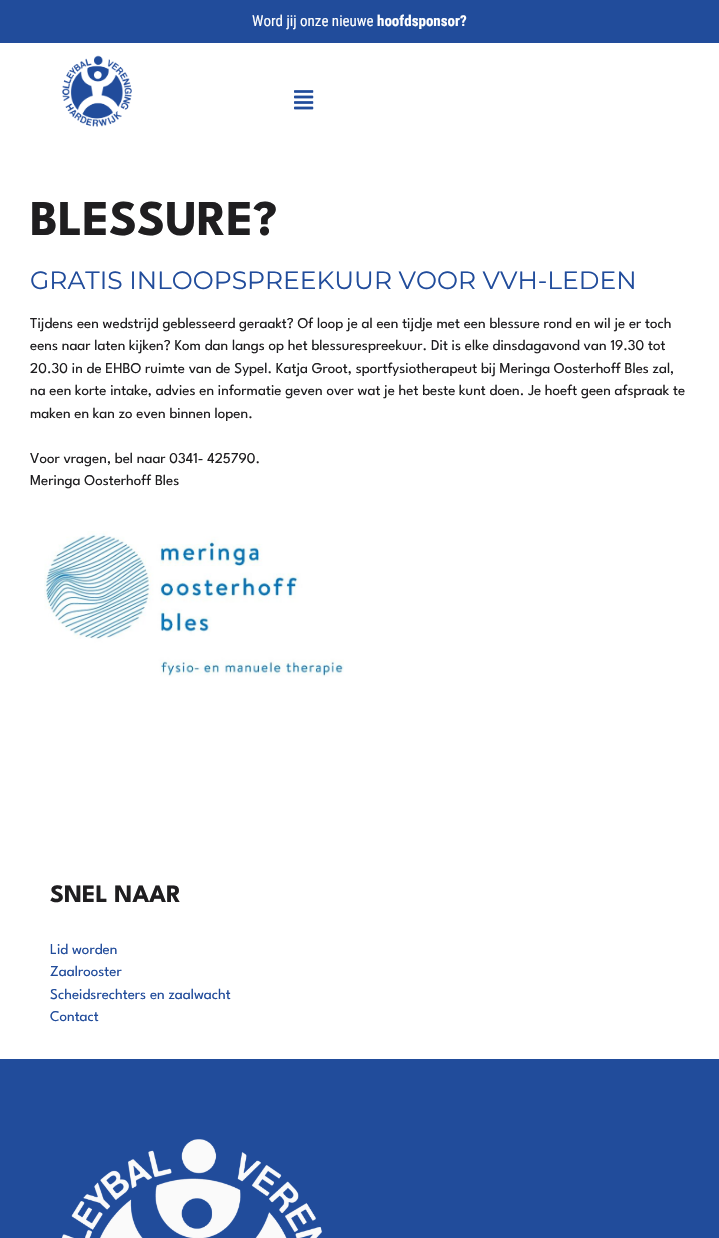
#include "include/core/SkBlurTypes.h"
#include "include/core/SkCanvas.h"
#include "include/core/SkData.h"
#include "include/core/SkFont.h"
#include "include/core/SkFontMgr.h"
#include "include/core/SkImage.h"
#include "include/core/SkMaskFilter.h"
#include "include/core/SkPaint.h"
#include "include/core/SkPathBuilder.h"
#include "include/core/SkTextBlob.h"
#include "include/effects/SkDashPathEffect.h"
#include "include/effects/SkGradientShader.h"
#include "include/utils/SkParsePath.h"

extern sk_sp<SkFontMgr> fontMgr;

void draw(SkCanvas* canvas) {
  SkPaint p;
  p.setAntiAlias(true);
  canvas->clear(SK_ColorWHITE);
  p.setColor(SkColorSetRGB(33, 76, 155));
  canvas->drawRect(SkRect::MakeLTRB(0, 0, 719, 43), p);
  canvas->drawImageRect(SkImages::DeferredFromEncodedData(SkData::MakeFromFileName("images/1.png")), SkRect::MakeLTRB(62, 55, 132, 127), SkSamplingOptions());
  canvas->drawImageRect(SkImages::DeferredFromEncodedData(SkData::MakeFromFileName("images/2.png")), SkRect::MakeLTRB(294, 90, 314, 110), SkSamplingOptions());
  canvas->drawImageRect(SkImages::DeferredFromEncodedData(SkData::MakeFromFileName("images/3.png")), SkRect::MakeLTRB(44, 531, 344, 677), SkSamplingOptions());
  canvas->drawRect(SkRect::MakeLTRB(0, 1059, 719, 1238), p);
  canvas->drawImageRect(SkImages::DeferredFromEncodedData(SkData::MakeFromFileName("images/4.png")), SkRect::MakeLTRB(61, 1139, 323, 1238), SkSamplingOptions());
  SkFont font1(fontMgr->matchFamilyStyle("Roboto Condensed", SkFontStyle::Normal()), 15);
  font1.setSubpixel(true);
  p.setColor(SK_ColorWHITE);
  canvas->drawString("Word jij onze nieuwe", 252, 26, font1, p);
  SkFont font2(fontMgr->matchFamilyStyle("Roboto Condensed", SkFontStyle::Bold()), 15);
  font2.setSubpixel(true);
  canvas->drawString("hoofdsponsor?", 377, 26, font2, p);
  SkFont font3(fontMgr->matchFamilyStyle("League Spartan", SkFontStyle::Bold()), 50);
  font3.setSubpixel(true);
  p.setColor(SkColorSetRGB(31, 30, 32));
  canvas->drawString("BLESSURE?", 30, 235, font3, p);
  SkFont font4(fontMgr->matchFamilyStyle("Montserrat", SkFontStyle::Normal()), 25);
  font4.setSubpixel(true);
  p.setColor(SkColorSetRGB(33, 76, 155));
  canvas->drawString("GRATIS INLOOPSPREEKUUR VOOR VVH-LEDEN", 30, 289, font4, p);
  SkFont font5(fontMgr->matchFamilyStyle("League Spartan", SkFontStyle::Normal()), 15);
  font5.setSubpixel(true);
  p.setColor(SkColorSetRGB(31, 30, 32));
  canvas->drawString("Tijdens een wedstrijd geblesseerd geraakt? Of loop je al een tijdje met een blessure rond en wil je er toch", 30, 328, font5, p);
  canvas->drawString("eens naar laten kijken? Kom dan langs op het blessurespreekuur. Dit is elke dinsdagavond van 19.30 tot", 30, 350, font5, p);
  canvas->drawString("20.30 in de EHBO ruimte van de Sypel. Katja Groot, sportfysiotherapeut bij Meringa Oosterhoff Bles zal,", 30, 373, font5, p);
  canvas->drawString("na een korte intake, advies en informatie geven over wat je het beste kunt doen. Je hoeft geen afspraak te", 30, 395, font5, p);
  canvas->drawString("maken en kan zo even binnen lopen.", 30, 418, font5, p);
  canvas->drawString("Voor vragen, bel naar 0341- 425790.", 30, 463, font5, p);
  canvas->drawString("Meringa Oosterhoff Bles", 30, 485, font5, p);
  SkFont font6(fontMgr->matchFamilyStyle("League Spartan", SkFontStyle::Bold()), 25);
  font6.setSubpixel(true);
  canvas->drawString("SNEL NAAR", 50, 902, font6, p);
  p.setColor(SkColorSetRGB(33, 76, 155));
  canvas->drawString("Lid worden", 50, 954, font5, p);
  canvas->drawString("Zaalrooster", 50, 976, font5, p);
  canvas->drawString("Scheidsrechters en zaalwacht", 50, 999, font5, p);
  canvas->drawString("Contact", 50, 1021, font5, p);
}
